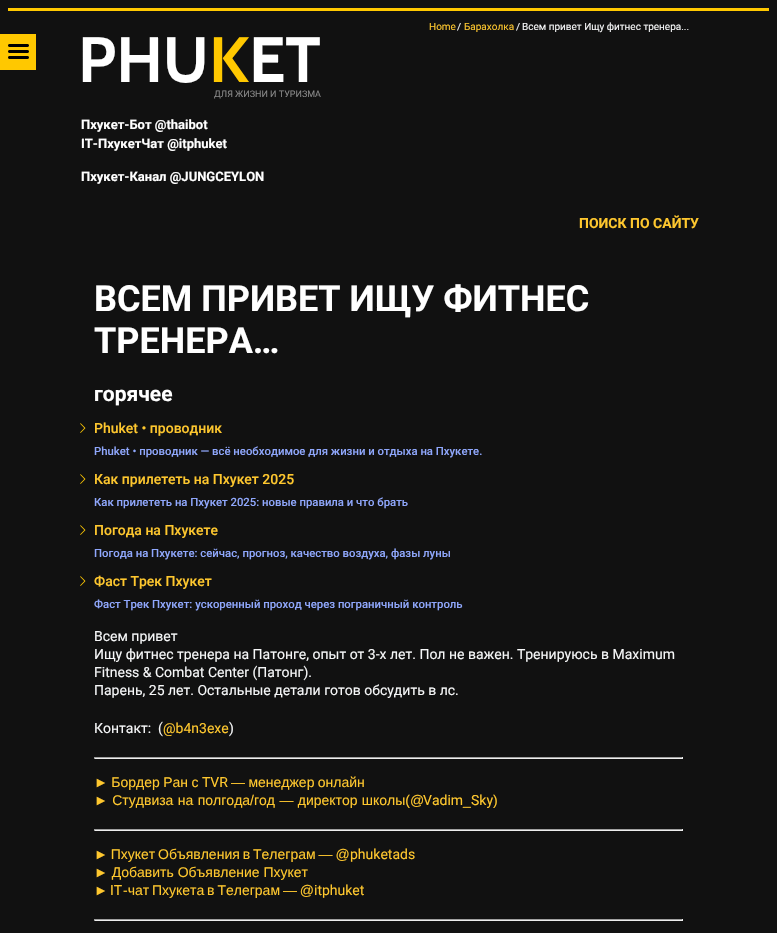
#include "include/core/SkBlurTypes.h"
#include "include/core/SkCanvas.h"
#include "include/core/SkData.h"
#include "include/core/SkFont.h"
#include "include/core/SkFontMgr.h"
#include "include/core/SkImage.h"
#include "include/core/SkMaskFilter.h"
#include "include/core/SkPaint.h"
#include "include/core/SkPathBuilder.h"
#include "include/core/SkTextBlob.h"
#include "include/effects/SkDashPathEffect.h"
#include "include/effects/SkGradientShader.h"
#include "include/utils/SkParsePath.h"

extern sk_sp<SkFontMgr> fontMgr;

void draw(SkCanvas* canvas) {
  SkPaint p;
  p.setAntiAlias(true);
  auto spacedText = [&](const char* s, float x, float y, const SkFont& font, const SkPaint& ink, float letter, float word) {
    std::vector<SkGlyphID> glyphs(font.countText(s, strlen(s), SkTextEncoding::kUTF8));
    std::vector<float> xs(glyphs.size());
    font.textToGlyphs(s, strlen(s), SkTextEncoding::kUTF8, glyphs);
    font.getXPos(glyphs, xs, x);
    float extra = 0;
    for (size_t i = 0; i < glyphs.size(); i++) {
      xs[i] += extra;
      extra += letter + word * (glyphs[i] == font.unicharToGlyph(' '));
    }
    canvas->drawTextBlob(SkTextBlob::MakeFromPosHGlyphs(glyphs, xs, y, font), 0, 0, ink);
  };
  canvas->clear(SkColorSetRGB(17, 17, 17));
  p.setColor(SkColorSetRGB(255, 200, 0));
  canvas->drawRect(SkRect::MakeLTRB(0, 34, 36, 70), p);
  canvas->drawImageRect(SkImages::DeferredFromEncodedData(SkData::MakeFromFileName("images/1.png")), SkRect::MakeLTRB(8, 44, 29, 59), SkSamplingOptions());
  canvas->drawRect(SkRect::MakeLTRB(8, 8, 769, 11), p);
  canvas->drawImageRect(SkImages::DeferredFromEncodedData(SkData::MakeFromFileName("images/2.png")), SkRect::MakeLTRB(80, 423, 86, 433), SkSamplingOptions());
  canvas->drawImageRect(SkImages::DeferredFromEncodedData(SkData::MakeFromFileName("images/2.png")), SkRect::MakeLTRB(80, 474, 86, 484), SkSamplingOptions());
  canvas->drawImageRect(SkImages::DeferredFromEncodedData(SkData::MakeFromFileName("images/2.png")), SkRect::MakeLTRB(80, 525, 86, 535), SkSamplingOptions());
  canvas->drawImageRect(SkImages::DeferredFromEncodedData(SkData::MakeFromFileName("images/2.png")), SkRect::MakeLTRB(80, 576, 86, 586), SkSamplingOptions());
  p.setColor(SkColorSetRGB(159, 159, 159));
  canvas->drawRect(SkRect::MakeLTRB(94, 757, 683, 758), p);
  p.setColor(SkColorSetRGB(238, 238, 238));
  canvas->drawRect(SkRect::MakeLTRB(682, 757, 683, 759), p);
  canvas->drawRect(SkRect::MakeLTRB(94, 758, 683, 759), p);
  p.setColor(SkColorSetRGB(159, 159, 159));
  canvas->drawRect(SkRect::MakeLTRB(94, 757, 95, 759), p);
  canvas->drawRect(SkRect::MakeLTRB(94, 829, 683, 830), p);
  p.setColor(SkColorSetRGB(238, 238, 238));
  canvas->drawRect(SkRect::MakeLTRB(682, 829, 683, 831), p);
  canvas->drawRect(SkRect::MakeLTRB(94, 830, 683, 831), p);
  p.setColor(SkColorSetRGB(159, 159, 159));
  canvas->drawRect(SkRect::MakeLTRB(94, 829, 95, 831), p);
  canvas->drawRect(SkRect::MakeLTRB(94, 919, 683, 920), p);
  p.setColor(SkColorSetRGB(238, 238, 238));
  canvas->drawRect(SkRect::MakeLTRB(682, 919, 683, 921), p);
  canvas->drawRect(SkRect::MakeLTRB(94, 920, 683, 921), p);
  p.setColor(SkColorSetRGB(159, 159, 159));
  canvas->drawRect(SkRect::MakeLTRB(94, 919, 95, 921), p);
  SkFont font1(fontMgr->matchFamilyStyle("Roboto", SkFontStyle::Normal()), 10);
  font1.setSubpixel(true);
  p.setColor(SkColorSetRGB(254, 199, 46));
  canvas->drawString("Home", 429, 30, font1, p);
  p.setColor(SkColorSetRGB(246, 247, 248));
  canvas->drawString("/", 457, 30, font1, p);
  p.setColor(SkColorSetRGB(254, 199, 46));
  canvas->drawString("Барахолка", 464, 30, font1, p);
  p.setColor(SkColorSetRGB(246, 247, 248));
  canvas->drawString("/", 516, 30, font1, p);
  canvas->drawString("Всем привет Ищу фитнес тренера...", 522, 30, font1, p);
  SkFont font2(fontMgr->matchFamilyStyle("Cabin", SkFontStyle::Bold()), 64);
  font2.setSubpixel(true);
  p.setColor(SK_ColorWHITE);
  canvas->drawString("PHU", 78, 82, font2, p);
  p.setColor(SkColorSetRGB(255, 200, 0));
  canvas->drawString("K", 209, 82, font2, p);
  p.setColor(SK_ColorWHITE);
  canvas->drawString("ET", 249, 82, font2, p);
  SkFont font3(fontMgr->matchFamilyStyle("Roboto", SkFontStyle::Normal()), 9);
  font3.setSubpixel(true);
  p.setColor(SkColorSetRGB(136, 136, 136));
  canvas->drawString("ДЛЯ ЖИЗНИ И ТУРИЗМА", 214, 97, font3, p);
  SkFont font4(fontMgr->matchFamilyStyle("Roboto", SkFontStyle::Bold()), 13);
  font4.setSubpixel(true);
  p.setColor(SK_ColorWHITE);
  canvas->drawString("Пхукет-Бот @thaibot", 81, 129, font4, p);
  canvas->drawString("IT-ПхукетЧат @itphuket", 81, 148, font4, p);
  canvas->drawString("Пхукет-Канал @JUNGCEYLON", 81, 181, font4, p);
  SkFont font5(fontMgr->matchFamilyStyle("Roboto", SkFontStyle::Bold()), 14);
  font5.setSubpixel(true);
  p.setColor(SkColorSetRGB(254, 199, 46));
  canvas->drawString("ПОИСК ПО САЙТУ", 579, 228, font5, p);
  SkFont font6(fontMgr->matchFamilyStyle("Roboto", SkFontStyle::Bold()), 36);
  font6.setSubpixel(true);
  p.setColor(SK_ColorWHITE);
  canvas->drawString("ВСЕМ ПРИВЕТ ИЩУ ФИТНЕС", 94, 311, font6, p);
  canvas->drawString("ТРЕНЕРА…", 94, 353, font6, p);
  SkFont font7(fontMgr->matchFamilyStyle("Roboto", SkFontStyle::Bold()), 21);
  font7.setSubpixel(true);
  canvas->drawString("горячее", 94, 401, font7, p);
  SkFont font8(fontMgr->matchFamilyStyle("Roboto", SkFontStyle(500, SkFontStyle::kNormal_Width, SkFontStyle::kUpright_Slant)), 14);
  font8.setSubpixel(true);
  p.setColor(SkColorSetRGB(254, 199, 46));
  canvas->drawString("Phuket • проводник", 94, 433, font8, p);
  SkFont font9(fontMgr->matchFamilyStyle("Roboto", SkFontStyle(500, SkFontStyle::kNormal_Width, SkFontStyle::kUpright_Slant)), 11.35f);
  font9.setSubpixel(true);
  p.setColor(SkColorSetRGB(143, 167, 252));
  canvas->drawString("Phuket • проводник — всё необходимое для жизни и отдыха на Пхукете.", 94, 455, font9, p);
  p.setColor(SkColorSetRGB(254, 199, 46));
  canvas->drawString("Как прилететь на Пхукет 2025", 94, 484, font8, p);
  p.setColor(SkColorSetRGB(143, 167, 252));
  canvas->drawString("Как прилететь на Пхукет 2025: новые правила и что брать", 94, 506, font9, p);
  p.setColor(SkColorSetRGB(254, 199, 46));
  canvas->drawString("Погода на Пхукете", 94, 535, font8, p);
  p.setColor(SkColorSetRGB(143, 167, 252));
  canvas->drawString("Погода на Пхукете: сейчас, прогноз, качество воздуха, фазы луны", 94, 557, font9, p);
  p.setColor(SkColorSetRGB(254, 199, 46));
  canvas->drawString("Фаст Трек Пхукет", 94, 586, font8, p);
  p.setColor(SkColorSetRGB(143, 167, 252));
  canvas->drawString("Фаст Трек Пхукет: ускоренный проход через пограничный контроль", 94, 608, font9, p);
  SkFont font10(fontMgr->matchFamilyStyle("Roboto", SkFontStyle::Normal()), 14);
  font10.setSubpixel(true);
  p.setColor(SkColorSetRGB(246, 247, 248));
  canvas->drawString("Всем привет", 94, 641, font10, p);
  canvas->drawString("Ищу фитнес тренера на Патонге, опыт от 3-х лет. Пол не важен. Тренируюсь в Maximum", 94, 659, font10, p);
  canvas->drawString("Fitness & Combat Center (Патонг).", 94, 677, font10, p);
  canvas->drawString("Парень, 25 лет. Остальные детали готов обсудить в лс.", 94, 695, font10, p);
  canvas->drawString("Контакт:  (", 94, 733, font10, p);
  p.setColor(SkColorSetRGB(254, 199, 46));
  canvas->drawString("@b4n3exe", 163, 733, font10, p);
  p.setColor(SkColorSetRGB(246, 247, 248));
  canvas->drawString(")", 229, 733, font10, p);
  SkFont font11(fontMgr->matchFamilyStyle("Liberation Sans", SkFontStyle::Normal()), 14);
  font11.setSubpixel(true);
  p.setColor(SkColorSetRGB(254, 199, 46));
  spacedText("► Бордер Ран с", 94, 787, font11, p, 0, -0.5f);
  canvas->drawString("TVR", 202, 787, font10, p);
  spacedText("— менеджер онлайн", 231, 787, font11, p, 0, -0.5f);
  spacedText("► Студвиза на полгода/год — директор школы(@", 94, 805, font11, p, 0, 0.5f);
  canvas->drawString("Vadim", 423, 805, font10, p);
  canvas->drawString("_", 463, 805, font11, p);
  canvas->drawString("Sky", 471, 805, font10, p);
  canvas->drawString(")", 493, 805, font11, p);
  spacedText("► Пхукет Объявления в Телеграм — @", 94, 859, font11, p, 0, -1);
  canvas->drawString("phuketads", 350, 859, font10, p);
  canvas->drawString("► Добавить Объявление Пхукет", 94, 877, font11, p);
  canvas->drawString("►", 94, 895, font11, p);
  canvas->drawString("IT", 110, 895, font10, p);
  spacedText("-чат Пхукета в Телеграм — @", 123, 895, font11, p, 0, -1);
  canvas->drawString("itphuket", 314, 895, font10, p);
}
